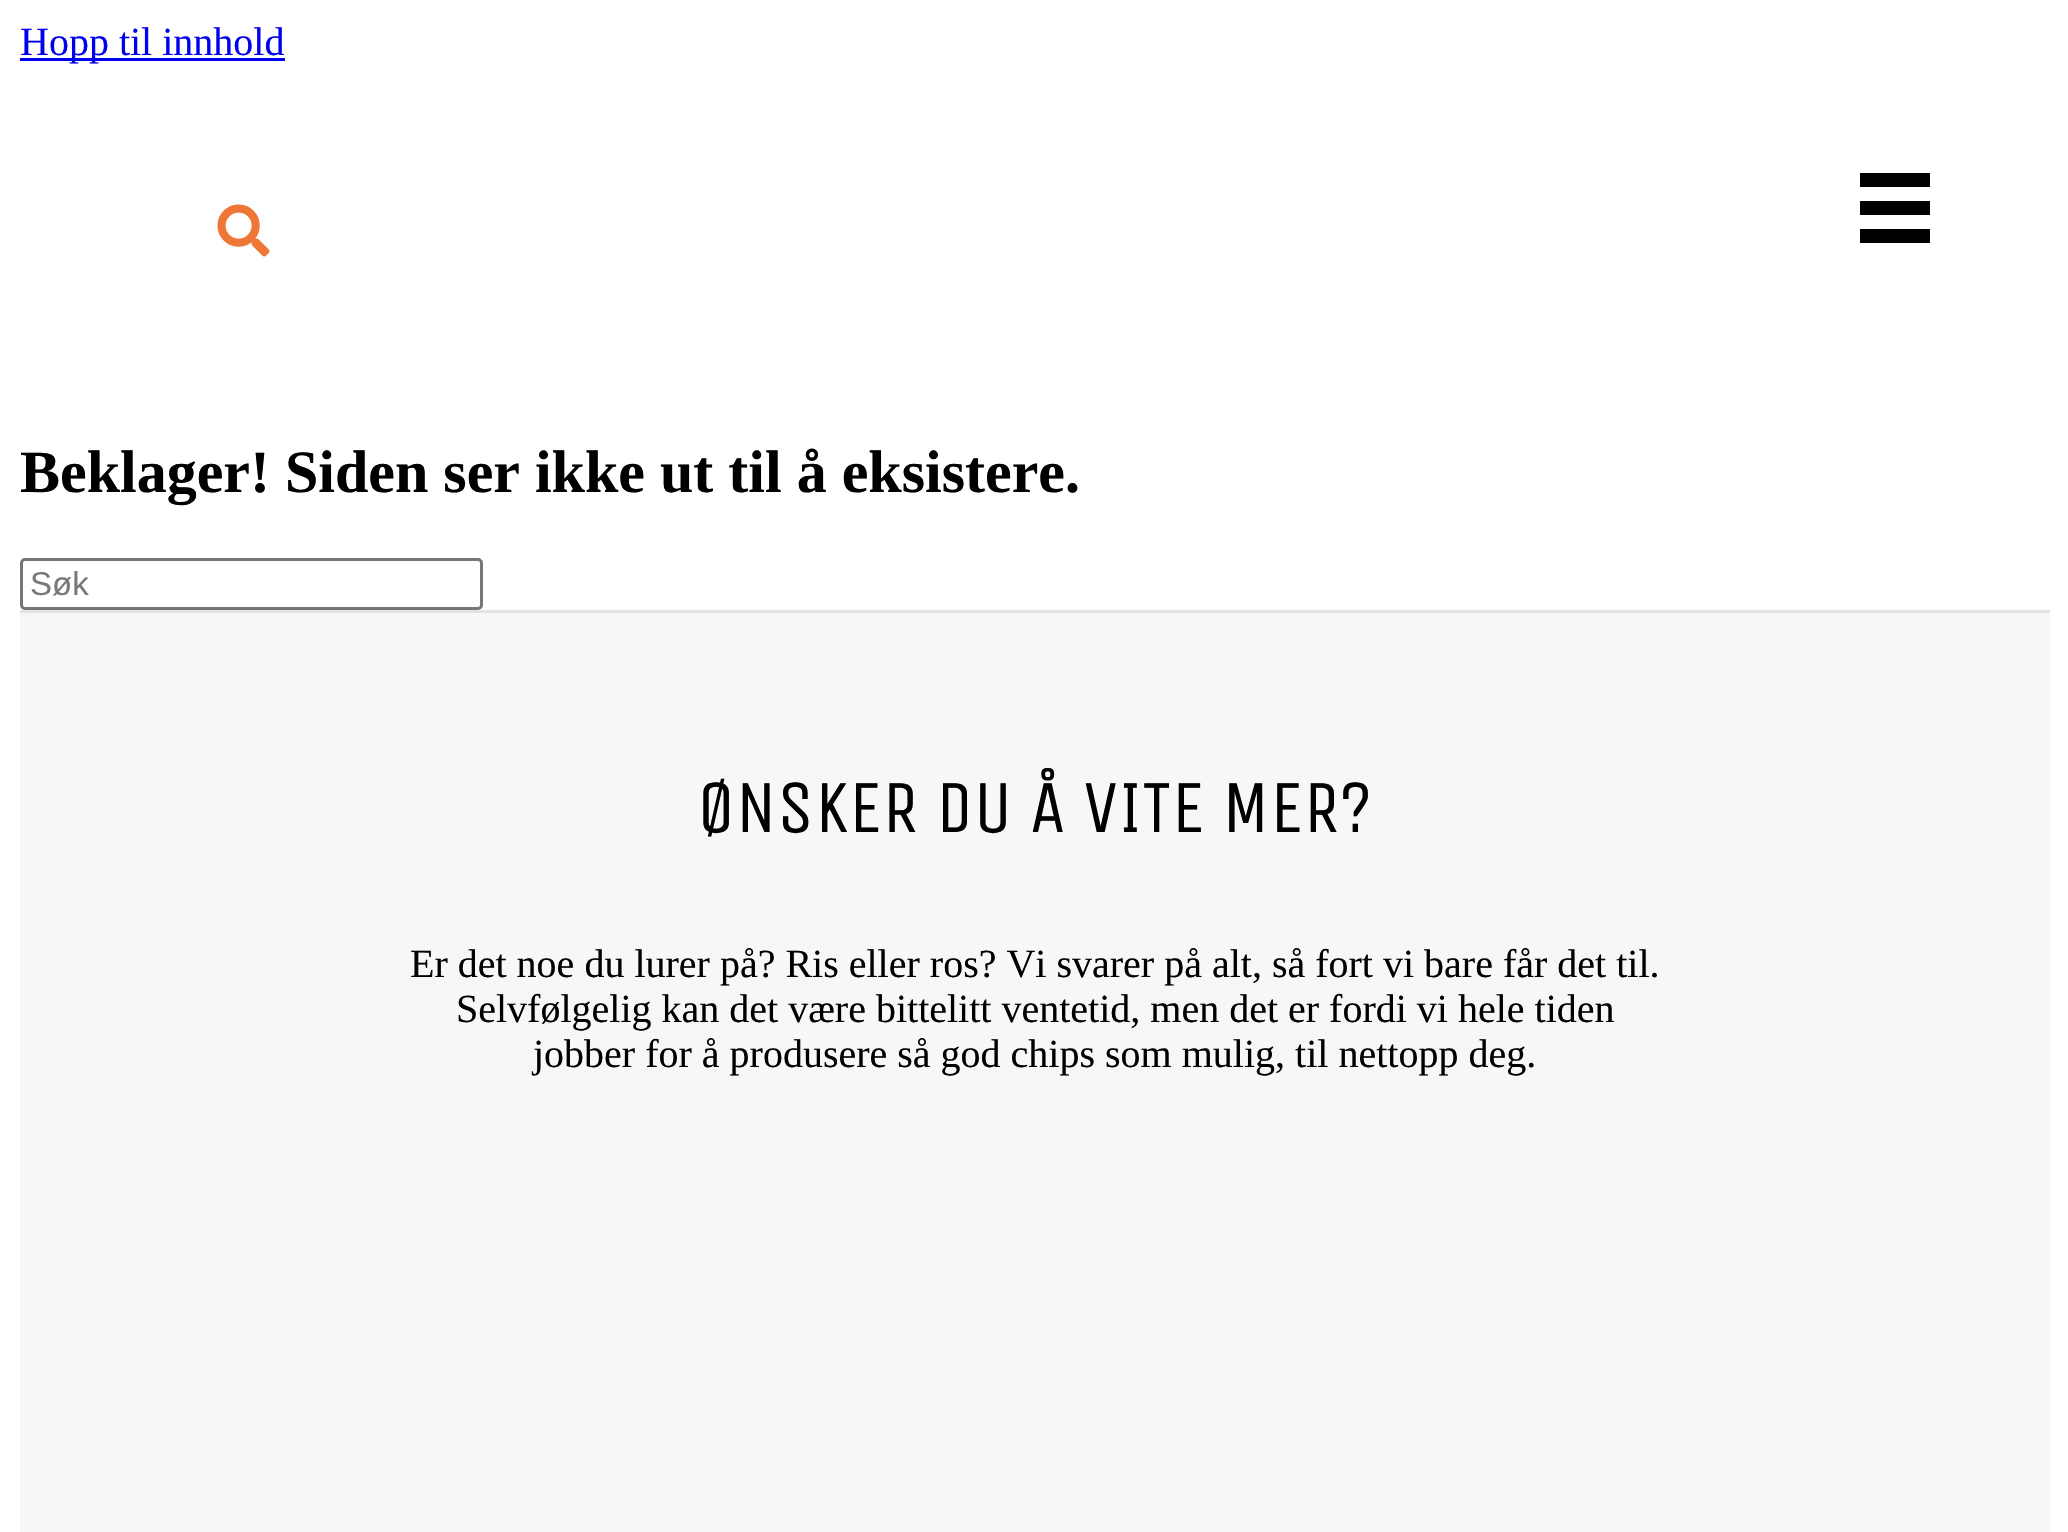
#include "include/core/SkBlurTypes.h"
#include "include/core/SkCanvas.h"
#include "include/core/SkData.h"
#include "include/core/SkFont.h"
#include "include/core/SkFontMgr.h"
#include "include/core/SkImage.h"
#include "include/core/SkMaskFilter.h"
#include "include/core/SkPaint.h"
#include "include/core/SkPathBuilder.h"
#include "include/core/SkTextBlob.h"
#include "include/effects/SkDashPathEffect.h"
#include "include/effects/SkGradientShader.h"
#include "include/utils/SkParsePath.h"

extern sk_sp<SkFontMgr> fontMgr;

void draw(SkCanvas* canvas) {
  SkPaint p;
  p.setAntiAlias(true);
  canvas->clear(SK_ColorWHITE);
  p.setColor(SkColorSetRGB(0, 0, 238));
  canvas->drawRect(SkRect::MakeLTRB(20, 58, 285, 61), p);
  canvas->drawImageRect(SkImages::DeferredFromEncodedData(SkData::MakeFromFileName("images/1.png")), SkRect::MakeLTRB(217, 204, 270, 257), SkSamplingOptions());
  p.setColor(SK_ColorBLACK);
  canvas->drawRect(SkRect::MakeLTRB(1860, 173, 1930, 187), p);
  canvas->drawRect(SkRect::MakeLTRB(1860, 201, 1930, 215), p);
  canvas->drawRect(SkRect::MakeLTRB(1860, 229, 1930, 243), p);
  p.setStyle(SkPaint::kStroke_Style);
  p.setStrokeWidth(3);
  p.setColor(SkColorSetRGB(118, 118, 118));
  canvas->drawRoundRect(SkRect::MakeLTRB(21.5f, 559.5f, 481.5f, 608.5f), 3.5f, 3.5f, p);
  p.setStyle(SkPaint::kFill_Style);
  p.setColor(SkColorSetRGB(247, 247, 247));
  canvas->drawRect(SkRect::MakeLTRB(20, 613, 2050, 1532), p);
  p.setColor(SkColorSetRGB(227, 227, 227));
  canvas->drawRect(SkRect::MakeLTRB(20, 610, 2050, 613), p);
  SkFont font1(fontMgr->matchFamilyStyle("Liberation Serif", SkFontStyle::Normal()), 40);
  font1.setSubpixel(true);
  p.setColor(SkColorSetRGB(0, 0, 238));
  canvas->drawString("Hopp til innhold", 20, 55, font1, p);
  SkFont font2(fontMgr->matchFamilyStyle("Liberation Serif", SkFontStyle::Bold()), 60);
  font2.setSubpixel(true);
  p.setColor(SK_ColorBLACK);
  canvas->drawString("Beklager! Siden ser ikke ut til å eksistere.", 20, 492, font2, p);
  SkFont font3(fontMgr->matchFamilyStyle("Liberation Sans", SkFontStyle::Normal()), 33);
  font3.setSubpixel(true);
  p.setColor(SkColorSetRGB(120, 120, 120));
  canvas->drawString("Søk", 30, 595, font3, p);
  SkFont font4(fontMgr->matchFamilyStyle("Unica One", SkFontStyle::Normal()), 75);
  font4.setSubpixel(true);
  p.setColor(SK_ColorBLACK);
  canvas->drawString("ØNSKER DU Å VITE MER?", 697, 832, font4, p);
  canvas->drawString("Er det noe du lurer på? Ris eller ros? Vi svarer på alt, så fort vi bare får det til.", 410, 977, font1, p);
  canvas->drawString("Selvfølgelig kan det være bittelitt ventetid, men det er fordi vi hele tiden", 456, 1022, font1, p);
  canvas->drawString("jobber for å produsere så god chips som mulig, til nettopp deg.", 533, 1067, font1, p);
}
